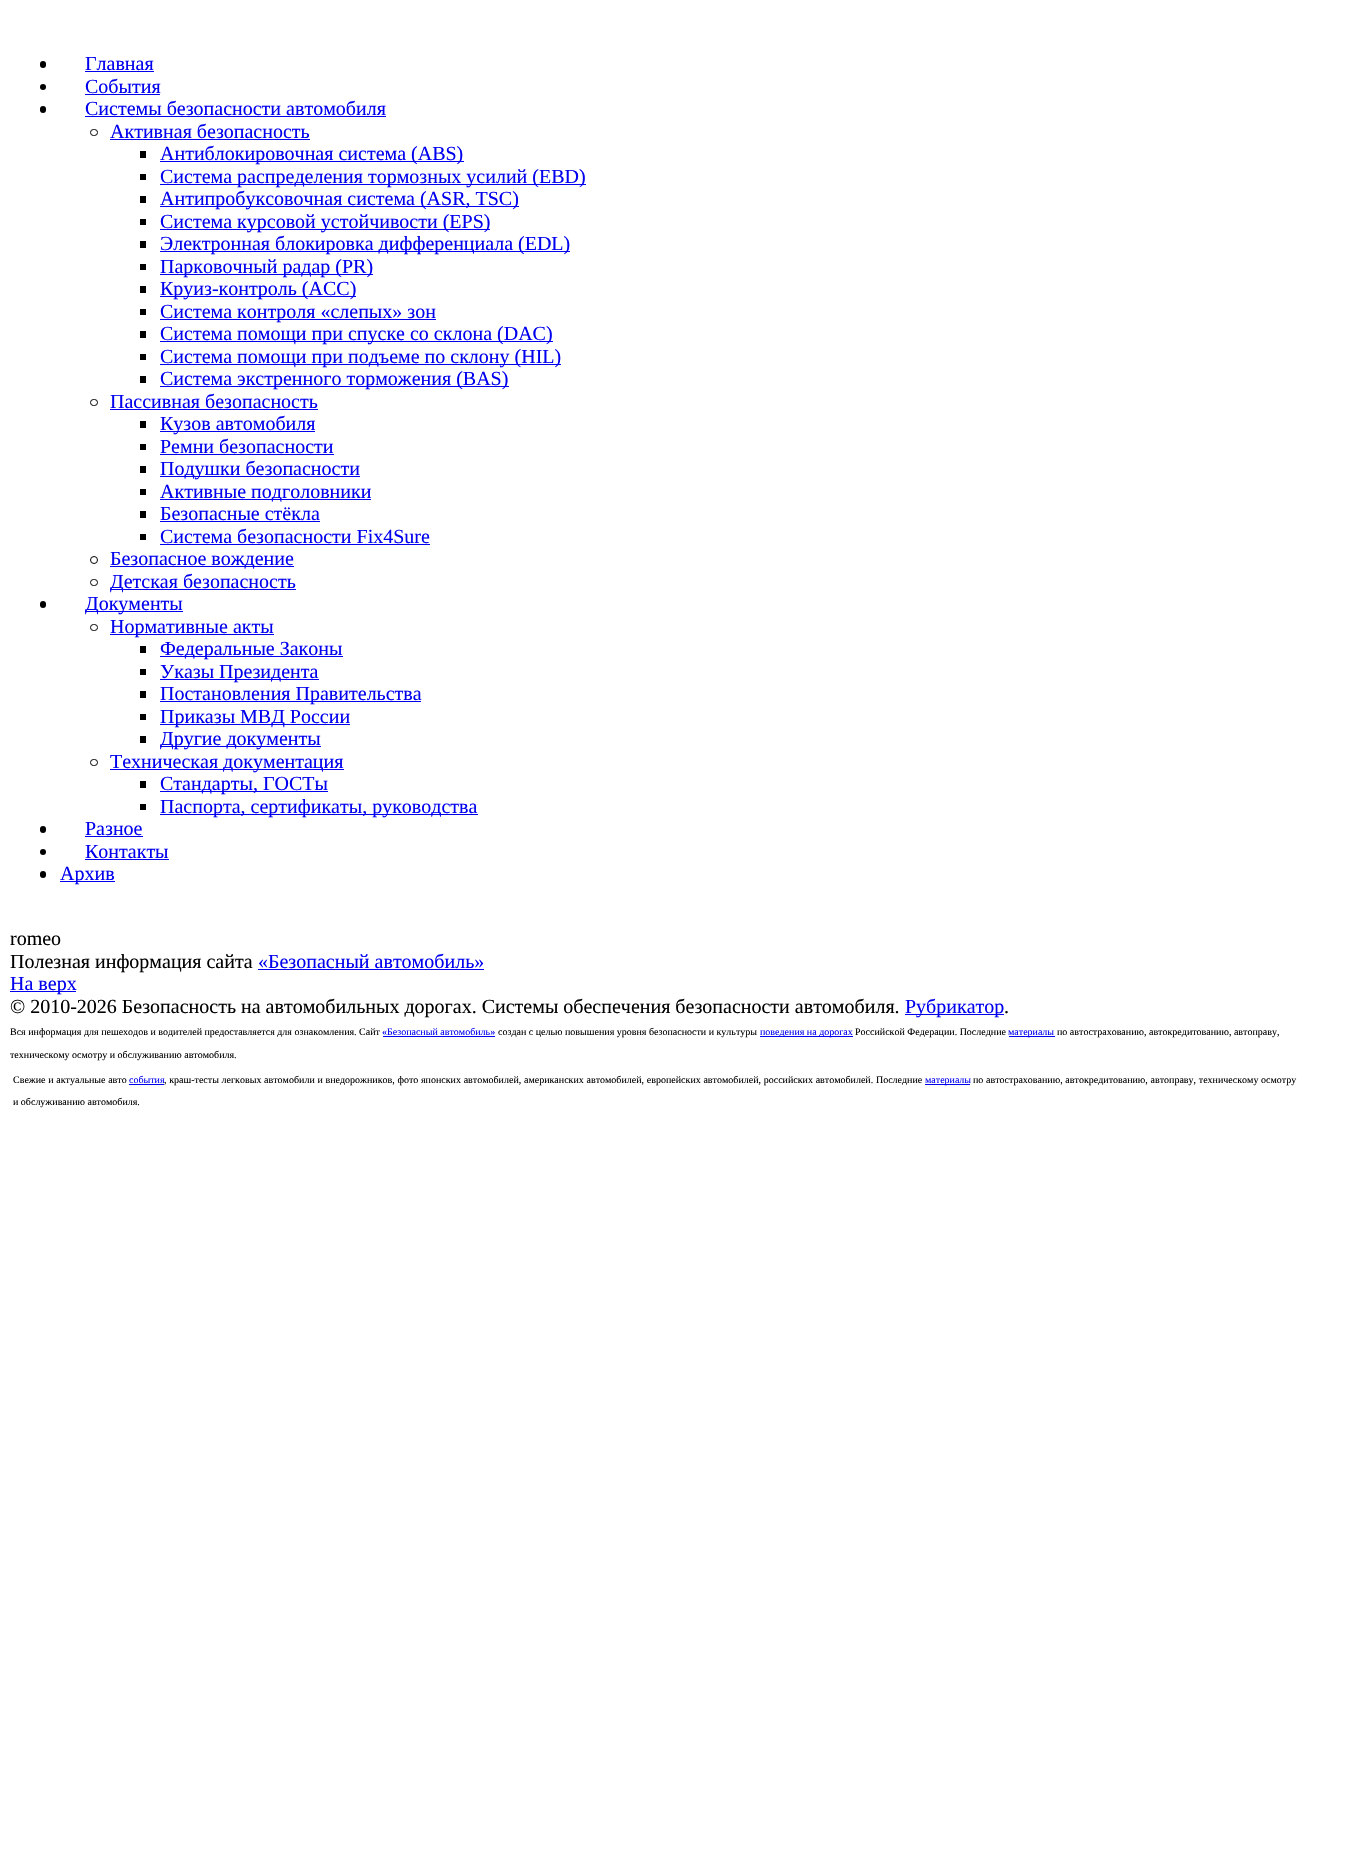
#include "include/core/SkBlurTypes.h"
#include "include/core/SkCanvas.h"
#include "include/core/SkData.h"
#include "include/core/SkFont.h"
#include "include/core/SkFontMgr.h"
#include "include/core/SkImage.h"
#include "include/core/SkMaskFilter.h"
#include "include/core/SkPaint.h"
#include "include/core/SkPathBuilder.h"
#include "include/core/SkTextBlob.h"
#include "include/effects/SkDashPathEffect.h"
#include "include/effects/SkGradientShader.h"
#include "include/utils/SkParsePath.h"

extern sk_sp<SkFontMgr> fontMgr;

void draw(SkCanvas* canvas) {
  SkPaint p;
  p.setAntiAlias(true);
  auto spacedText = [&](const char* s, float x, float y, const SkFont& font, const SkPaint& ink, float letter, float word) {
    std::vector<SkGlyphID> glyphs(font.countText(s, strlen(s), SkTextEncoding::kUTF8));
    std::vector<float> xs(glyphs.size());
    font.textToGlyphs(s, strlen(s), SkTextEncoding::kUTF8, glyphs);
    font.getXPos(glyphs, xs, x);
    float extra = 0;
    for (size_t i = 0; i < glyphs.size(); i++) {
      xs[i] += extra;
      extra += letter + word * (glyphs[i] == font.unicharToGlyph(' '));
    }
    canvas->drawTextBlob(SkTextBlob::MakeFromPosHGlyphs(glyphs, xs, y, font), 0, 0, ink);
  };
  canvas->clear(SK_ColorWHITE);
  p.setColor(SK_ColorBLACK);
  canvas->drawRoundRect(SkRect::MakeLTRB(40, 61, 46, 68), 3, 3, p);
  p.setColor(SkColorSetRGB(0, 0, 238));
  canvas->drawRect(SkRect::MakeLTRB(85, 71, 154, 72), p);
  p.setColor(SK_ColorBLACK);
  canvas->drawCircle(43, 87, 3, p);
  p.setColor(SkColorSetRGB(0, 0, 238));
  canvas->drawRect(SkRect::MakeLTRB(85, 94, 160, 95), p);
  p.setColor(SK_ColorBLACK);
  canvas->drawRoundRect(SkRect::MakeLTRB(40, 106, 46, 113), 3, 3, p);
  p.setColor(SkColorSetRGB(0, 0, 238));
  canvas->drawRect(SkRect::MakeLTRB(85, 116, 386, 117), p);
  p.setStyle(SkPaint::kStroke_Style);
  p.setStrokeWidth(1);
  p.setColor(SK_ColorBLACK);
  canvas->drawRoundRect(SkRect::MakeLTRB(90.5f, 129.5f, 97.5f, 135.5f), 3, 3, p);
  p.setStyle(SkPaint::kFill_Style);
  p.setColor(SkColorSetRGB(0, 0, 238));
  canvas->drawRect(SkRect::MakeLTRB(110, 139, 310, 140), p);
  p.setColor(SK_ColorBLACK);
  canvas->drawRect(SkRect::MakeLTRB(140, 151, 146, 158), p);
  p.setColor(SkColorSetRGB(0, 0, 238));
  canvas->drawRect(SkRect::MakeLTRB(160, 161, 464, 162), p);
  p.setColor(SK_ColorBLACK);
  canvas->drawRect(SkRect::MakeLTRB(140, 174, 146, 180), p);
  p.setColor(SkColorSetRGB(0, 0, 238));
  canvas->drawRect(SkRect::MakeLTRB(160, 184, 586, 185), p);
  p.setColor(SK_ColorBLACK);
  canvas->drawRect(SkRect::MakeLTRB(140, 196, 146, 203), p);
  p.setColor(SkColorSetRGB(0, 0, 238));
  canvas->drawRect(SkRect::MakeLTRB(160, 206, 519, 207), p);
  p.setColor(SK_ColorBLACK);
  canvas->drawRect(SkRect::MakeLTRB(140, 219, 146, 225), p);
  p.setColor(SkColorSetRGB(0, 0, 238));
  canvas->drawRect(SkRect::MakeLTRB(160, 229, 490, 230), p);
  p.setColor(SK_ColorBLACK);
  canvas->drawRect(SkRect::MakeLTRB(140, 241, 146, 248), p);
  p.setColor(SkColorSetRGB(0, 0, 238));
  canvas->drawRect(SkRect::MakeLTRB(160, 251, 570, 252), p);
  p.setColor(SK_ColorBLACK);
  canvas->drawRect(SkRect::MakeLTRB(140, 264, 146, 270), p);
  p.setColor(SkColorSetRGB(0, 0, 238));
  canvas->drawRect(SkRect::MakeLTRB(160, 274, 373, 275), p);
  p.setColor(SK_ColorBLACK);
  canvas->drawRect(SkRect::MakeLTRB(140, 286, 146, 293), p);
  p.setColor(SkColorSetRGB(0, 0, 238));
  canvas->drawRect(SkRect::MakeLTRB(160, 296, 356, 297), p);
  p.setColor(SK_ColorBLACK);
  canvas->drawRect(SkRect::MakeLTRB(140, 309, 146, 315), p);
  p.setColor(SkColorSetRGB(0, 0, 238));
  canvas->drawRect(SkRect::MakeLTRB(160, 319, 436, 320), p);
  p.setColor(SK_ColorBLACK);
  canvas->drawRect(SkRect::MakeLTRB(140, 331, 146, 338), p);
  p.setColor(SkColorSetRGB(0, 0, 238));
  canvas->drawRect(SkRect::MakeLTRB(160, 341, 553, 342), p);
  p.setColor(SK_ColorBLACK);
  canvas->drawRect(SkRect::MakeLTRB(140, 354, 146, 360), p);
  p.setColor(SkColorSetRGB(0, 0, 238));
  canvas->drawRect(SkRect::MakeLTRB(160, 364, 561, 365), p);
  p.setColor(SK_ColorBLACK);
  canvas->drawRect(SkRect::MakeLTRB(140, 376, 146, 383), p);
  p.setColor(SkColorSetRGB(0, 0, 238));
  canvas->drawRect(SkRect::MakeLTRB(160, 386, 509, 387), p);
  p.setStyle(SkPaint::kStroke_Style);
  p.setColor(SK_ColorBLACK);
  canvas->drawRoundRect(SkRect::MakeLTRB(90.5f, 399.5f, 97.5f, 405.5f), 3, 3, p);
  p.setStyle(SkPaint::kFill_Style);
  p.setColor(SkColorSetRGB(0, 0, 238));
  canvas->drawRect(SkRect::MakeLTRB(110, 409, 318, 410), p);
  p.setColor(SK_ColorBLACK);
  canvas->drawRect(SkRect::MakeLTRB(140, 421, 146, 428), p);
  p.setColor(SkColorSetRGB(0, 0, 238));
  canvas->drawRect(SkRect::MakeLTRB(160, 431, 315, 432), p);
  p.setColor(SK_ColorBLACK);
  canvas->drawRect(SkRect::MakeLTRB(140, 444, 146, 450), p);
  p.setColor(SkColorSetRGB(0, 0, 238));
  canvas->drawRect(SkRect::MakeLTRB(160, 454, 334, 455), p);
  p.setColor(SK_ColorBLACK);
  canvas->drawRect(SkRect::MakeLTRB(140, 466, 146, 473), p);
  p.setColor(SkColorSetRGB(0, 0, 238));
  canvas->drawRect(SkRect::MakeLTRB(160, 476, 360, 477), p);
  p.setColor(SK_ColorBLACK);
  canvas->drawRect(SkRect::MakeLTRB(140, 489, 146, 495), p);
  p.setColor(SkColorSetRGB(0, 0, 238));
  canvas->drawRect(SkRect::MakeLTRB(160, 499, 371, 500), p);
  p.setColor(SK_ColorBLACK);
  canvas->drawRect(SkRect::MakeLTRB(140, 511, 146, 518), p);
  p.setColor(SkColorSetRGB(0, 0, 238));
  canvas->drawRect(SkRect::MakeLTRB(160, 521, 320, 522), p);
  p.setColor(SK_ColorBLACK);
  canvas->drawRect(SkRect::MakeLTRB(140, 534, 146, 540), p);
  p.setColor(SkColorSetRGB(0, 0, 238));
  canvas->drawRect(SkRect::MakeLTRB(160, 544, 430, 545), p);
  p.setStyle(SkPaint::kStroke_Style);
  p.setColor(SK_ColorBLACK);
  canvas->drawCircle(94, 560, 3.5f, p);
  p.setStyle(SkPaint::kFill_Style);
  p.setColor(SkColorSetRGB(0, 0, 238));
  canvas->drawRect(SkRect::MakeLTRB(110, 566, 294, 567), p);
  p.setStyle(SkPaint::kStroke_Style);
  p.setColor(SK_ColorBLACK);
  canvas->drawRoundRect(SkRect::MakeLTRB(90.5f, 579.5f, 97.5f, 585.5f), 3, 3, p);
  p.setStyle(SkPaint::kFill_Style);
  p.setColor(SkColorSetRGB(0, 0, 238));
  canvas->drawRect(SkRect::MakeLTRB(110, 589, 296, 590), p);
  p.setColor(SK_ColorBLACK);
  canvas->drawRoundRect(SkRect::MakeLTRB(40, 601, 46, 608), 3, 3, p);
  p.setColor(SkColorSetRGB(0, 0, 238));
  canvas->drawRect(SkRect::MakeLTRB(85, 611, 183, 612), p);
  p.setStyle(SkPaint::kStroke_Style);
  p.setColor(SK_ColorBLACK);
  canvas->drawRoundRect(SkRect::MakeLTRB(90.5f, 624.5f, 97.5f, 630.5f), 3, 3, p);
  p.setStyle(SkPaint::kFill_Style);
  p.setColor(SkColorSetRGB(0, 0, 238));
  canvas->drawRect(SkRect::MakeLTRB(110, 634, 274, 635), p);
  p.setColor(SK_ColorBLACK);
  canvas->drawRect(SkRect::MakeLTRB(140, 646, 146, 653), p);
  p.setColor(SkColorSetRGB(0, 0, 238));
  canvas->drawRect(SkRect::MakeLTRB(160, 656, 343, 657), p);
  p.setColor(SK_ColorBLACK);
  canvas->drawRect(SkRect::MakeLTRB(140, 669, 146, 675), p);
  p.setColor(SkColorSetRGB(0, 0, 238));
  canvas->drawRect(SkRect::MakeLTRB(160, 679, 319, 680), p);
  p.setColor(SK_ColorBLACK);
  canvas->drawRect(SkRect::MakeLTRB(140, 691, 146, 698), p);
  p.setColor(SkColorSetRGB(0, 0, 238));
  canvas->drawRect(SkRect::MakeLTRB(160, 701, 421, 702), p);
  p.setColor(SK_ColorBLACK);
  canvas->drawRect(SkRect::MakeLTRB(140, 714, 146, 720), p);
  p.setColor(SkColorSetRGB(0, 0, 238));
  canvas->drawRect(SkRect::MakeLTRB(160, 724, 350, 725), p);
  p.setColor(SK_ColorBLACK);
  canvas->drawRect(SkRect::MakeLTRB(140, 736, 146, 743), p);
  p.setColor(SkColorSetRGB(0, 0, 238));
  canvas->drawRect(SkRect::MakeLTRB(160, 746, 321, 747), p);
  p.setStyle(SkPaint::kStroke_Style);
  p.setColor(SK_ColorBLACK);
  canvas->drawRoundRect(SkRect::MakeLTRB(90.5f, 759.5f, 97.5f, 765.5f), 3, 3, p);
  p.setStyle(SkPaint::kFill_Style);
  p.setColor(SkColorSetRGB(0, 0, 238));
  canvas->drawRect(SkRect::MakeLTRB(110, 769, 344, 770), p);
  p.setColor(SK_ColorBLACK);
  canvas->drawRect(SkRect::MakeLTRB(140, 781, 146, 788), p);
  p.setColor(SkColorSetRGB(0, 0, 238));
  canvas->drawRect(SkRect::MakeLTRB(160, 791, 328, 792), p);
  p.setColor(SK_ColorBLACK);
  canvas->drawRect(SkRect::MakeLTRB(140, 804, 146, 810), p);
  p.setColor(SkColorSetRGB(0, 0, 238));
  canvas->drawRect(SkRect::MakeLTRB(160, 814, 478, 815), p);
  p.setColor(SK_ColorBLACK);
  canvas->drawRoundRect(SkRect::MakeLTRB(40, 826, 46, 833), 3, 3, p);
  p.setColor(SkColorSetRGB(0, 0, 238));
  canvas->drawRect(SkRect::MakeLTRB(85, 836, 143, 837), p);
  p.setColor(SK_ColorBLACK);
  canvas->drawCircle(43, 852, 3, p);
  p.setColor(SkColorSetRGB(0, 0, 238));
  canvas->drawRect(SkRect::MakeLTRB(85, 859, 169, 860), p);
  p.setColor(SK_ColorBLACK);
  canvas->drawRoundRect(SkRect::MakeLTRB(40, 871, 46, 878), 3, 3, p);
  p.setColor(SkColorSetRGB(0, 0, 238));
  canvas->drawRect(SkRect::MakeLTRB(60, 881, 115, 882), p);
  canvas->drawRect(SkRect::MakeLTRB(258, 969, 484, 970), p);
  canvas->drawRect(SkRect::MakeLTRB(10, 991, 76, 992), p);
  canvas->drawRect(SkRect::MakeLTRB(905, 1014, 1004, 1015), p);
  canvas->drawRect(SkRect::MakeLTRB(383, 1036, 495, 1037), p);
  canvas->drawRect(SkRect::MakeLTRB(760, 1036, 853, 1037), p);
  canvas->drawRect(SkRect::MakeLTRB(1009, 1036, 1055, 1037), p);
  canvas->drawRect(SkRect::MakeLTRB(129, 1084, 164, 1085), p);
  canvas->drawRect(SkRect::MakeLTRB(925, 1084, 970, 1085), p);
  SkFont font1(fontMgr->matchFamilyStyle("Liberation Serif", SkFontStyle::Normal()), 20);
  font1.setSubpixel(true);
  canvas->drawString("Главная", 85, 70, font1, p);
  canvas->drawString("События", 85, 93, font1, p);
  canvas->drawString("Системы безопасности автомобиля", 85, 115, font1, p);
  canvas->drawString("Активная безопасность", 110, 138, font1, p);
  canvas->drawString("Антиблокировочная система (ABS)", 160, 160, font1, p);
  canvas->drawString("Система распределения тормозных усилий (EBD)", 160, 183, font1, p);
  canvas->drawString("Антипробуксовочная система (ASR, TSC)", 160, 205, font1, p);
  canvas->drawString("Система курсовой устойчивости (EPS)", 160, 228, font1, p);
  canvas->drawString("Электронная блокировка дифференциала (EDL)", 160, 250, font1, p);
  canvas->drawString("Парковочный радар (PR)", 160, 273, font1, p);
  canvas->drawString("Круиз-контроль (ACC)", 160, 295, font1, p);
  canvas->drawString("Система контроля «слепых» зон", 160, 318, font1, p);
  canvas->drawString("Система помощи при спуске со склона (DAC)", 160, 340, font1, p);
  canvas->drawString("Система помощи при подъеме по склону (HIL)", 160, 363, font1, p);
  canvas->drawString("Система экстренного торможения (BAS)", 160, 385, font1, p);
  canvas->drawString("Пассивная безопасность", 110, 408, font1, p);
  canvas->drawString("Кузов автомобиля", 160, 430, font1, p);
  canvas->drawString("Ремни безопасности", 160, 453, font1, p);
  canvas->drawString("Подушки безопасности", 160, 475, font1, p);
  canvas->drawString("Активные подголовники", 160, 498, font1, p);
  canvas->drawString("Безопасные стёкла", 160, 520, font1, p);
  canvas->drawString("Cистема безопасности Fix4Sure", 160, 543, font1, p);
  canvas->drawString("Безопасное вождение", 110, 565, font1, p);
  canvas->drawString("Детская безопасность", 110, 588, font1, p);
  canvas->drawString("Документы", 85, 610, font1, p);
  canvas->drawString("Нормативные акты", 110, 633, font1, p);
  canvas->drawString("Федеральные Законы", 160, 655, font1, p);
  canvas->drawString("Указы Президента", 160, 678, font1, p);
  canvas->drawString("Постановления Правительства", 160, 700, font1, p);
  canvas->drawString("Приказы МВД России", 160, 723, font1, p);
  canvas->drawString("Другие документы", 160, 745, font1, p);
  canvas->drawString("Техническая документация", 110, 768, font1, p);
  canvas->drawString("Стандарты, ГОСТы", 160, 790, font1, p);
  canvas->drawString("Паспорта, сертификаты, руководства", 160, 813, font1, p);
  canvas->drawString("Разное", 85, 835, font1, p);
  canvas->drawString("Контакты", 85, 858, font1, p);
  canvas->drawString("Архив", 60, 880, font1, p);
  p.setColor(SK_ColorBLACK);
  canvas->drawString("romeo", 10, 945, font1, p);
  canvas->drawString("Полезная информация сайта", 10, 968, font1, p);
  p.setColor(SkColorSetRGB(0, 0, 238));
  canvas->drawString("«Безопасный автомобиль»", 258, 968, font1, p);
  canvas->drawString("На верх", 10, 990, font1, p);
  p.setColor(SK_ColorBLACK);
  canvas->drawString("© 2010-2026 Безопасность на автомобильных дорогах. Системы обеспечения безопасности автомобиля.", 10, 1013, font1, p);
  p.setColor(SkColorSetRGB(0, 0, 238));
  canvas->drawString("Рубрикатор", 905, 1013, font1, p);
  p.setColor(SK_ColorBLACK);
  canvas->drawString(".", 1004, 1013, font1, p);
  SkFont font2(fontMgr->matchFamilyStyle("Liberation Serif", SkFontStyle::Normal()), 10);
  font2.setSubpixel(true);
  canvas->drawString("Вся информация для пешеходов и водителей предоставляется для ознакомления. Сайт", 10, 1035, font2, p);
  p.setColor(SkColorSetRGB(0, 0, 238));
  canvas->drawString("«Безопасный автомобиль»", 382, 1035, font2, p);
  p.setColor(SK_ColorBLACK);
  canvas->drawString("создан с целью повышения уровня безопасности и культуры", 498, 1035, font2, p);
  p.setColor(SkColorSetRGB(0, 0, 238));
  canvas->drawString("поведения на дорогах", 760, 1035, font2, p);
  p.setColor(SK_ColorBLACK);
  canvas->drawString("Российской Федерации. Последние", 855, 1035, font2, p);
  p.setColor(SkColorSetRGB(0, 0, 238));
  canvas->drawString("материалы", 1008, 1035, font2, p);
  p.setColor(SK_ColorBLACK);
  canvas->drawString("по автострахованию, автокредитованию, автоправу,", 1057, 1035, font2, p);
  canvas->drawString("техническому осмотру и обслуживанию автомобиля.", 10, 1058, font2, p);
  spacedText("Свежие и актуальные авто", 13, 1083, font2, p, 0, 0.2f);
  p.setColor(SkColorSetRGB(0, 0, 238));
  canvas->drawString("события", 129, 1083, font2, p);
  p.setColor(SK_ColorBLACK);
  spacedText(", краш-тесты легковых автомобили и внедорожников, фото японских автомобилей, американских автомобилей, европейских автомобилей, российских автомобилей. Последние", 164, 1083, font2, p, 0, 0.2f);
  p.setColor(SkColorSetRGB(0, 0, 238));
  canvas->drawString("материалы", 925, 1083, font2, p);
  p.setColor(SK_ColorBLACK);
  spacedText("по автострахованию, автокредитованию, автоправу, техническому осмотру", 973, 1083, font2, p, 0, 0.2f);
  canvas->drawString("и обслуживанию автомобиля.", 13, 1105, font2, p);
}
